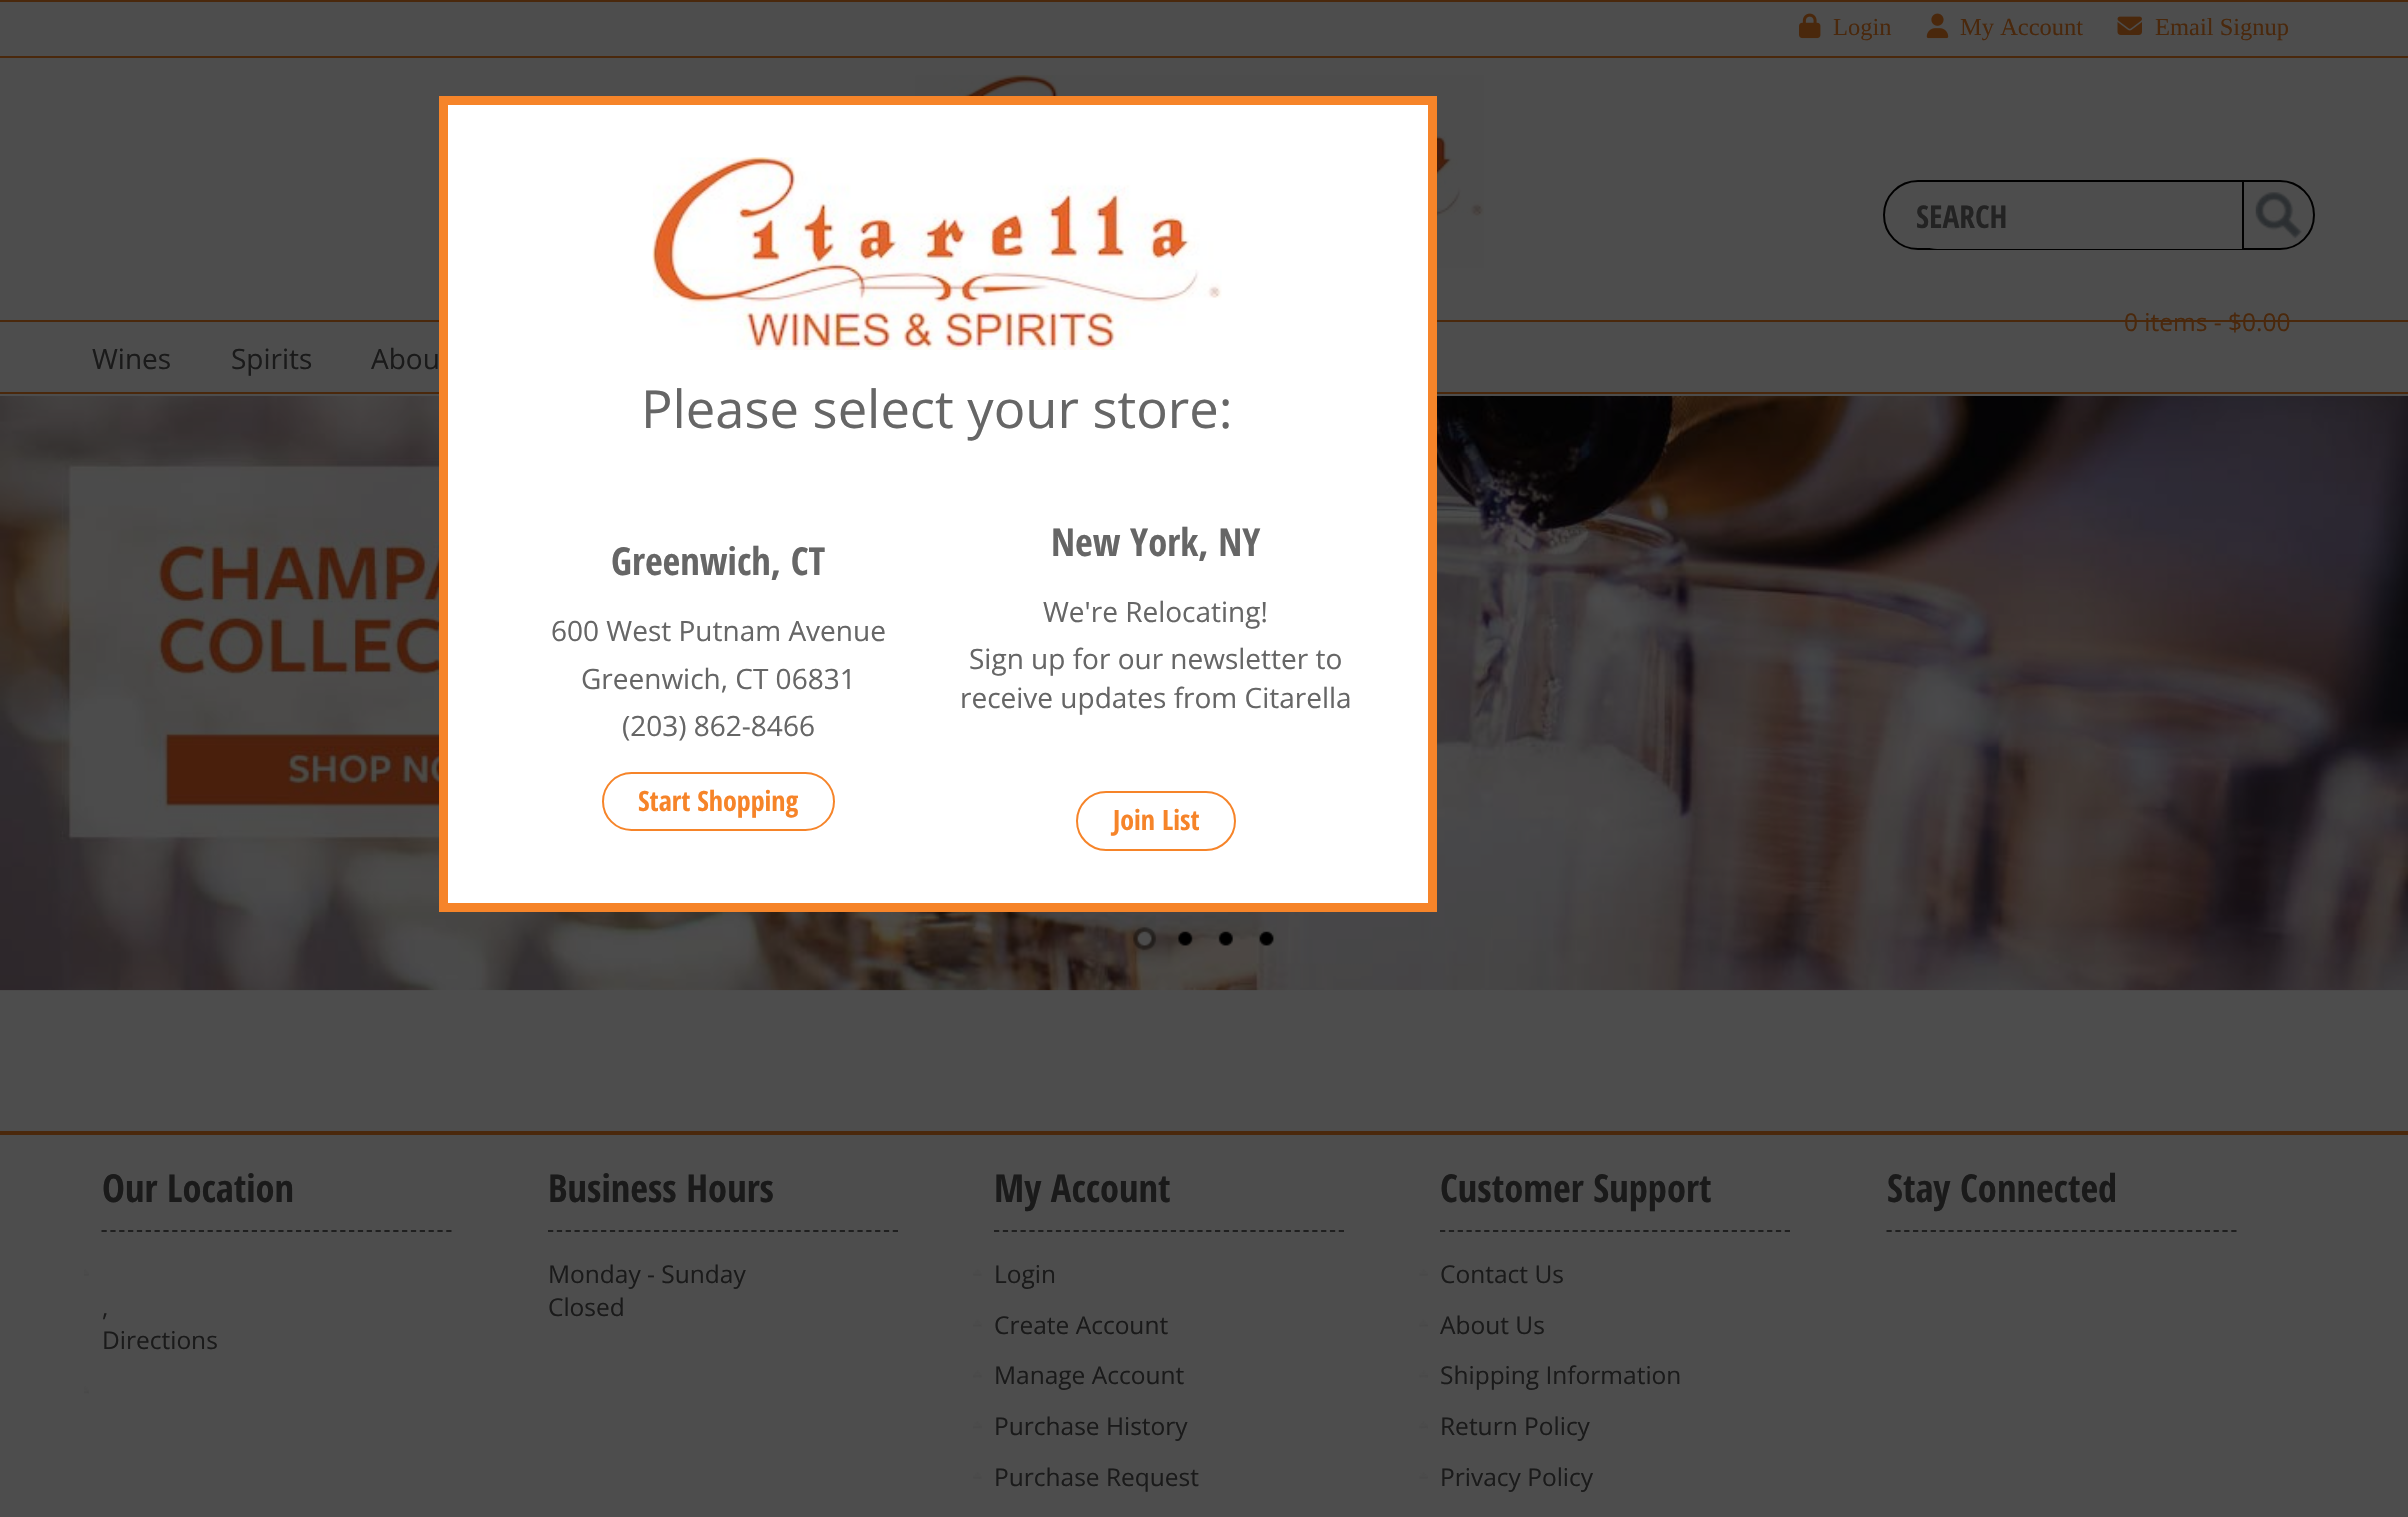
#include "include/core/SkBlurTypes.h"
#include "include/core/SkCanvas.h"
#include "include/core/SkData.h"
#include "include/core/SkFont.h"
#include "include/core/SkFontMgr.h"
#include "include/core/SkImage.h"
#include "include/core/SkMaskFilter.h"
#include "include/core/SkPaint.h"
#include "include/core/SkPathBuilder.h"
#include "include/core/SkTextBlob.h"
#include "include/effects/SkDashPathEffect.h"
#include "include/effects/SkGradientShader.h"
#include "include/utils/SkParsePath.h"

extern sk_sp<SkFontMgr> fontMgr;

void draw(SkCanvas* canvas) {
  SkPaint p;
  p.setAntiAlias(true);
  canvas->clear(SkColorSetRGB(77, 77, 77));
  p.setColor(SkColorSetRGB(74, 40, 12));
  canvas->drawRect(SkRect::MakeLTRB(0, 0, 2408, 2), p);
  canvas->drawRect(SkRect::MakeLTRB(0, 56, 2408, 58), p);
  canvas->drawImageRect(SkImages::DeferredFromEncodedData(SkData::MakeFromFileName("images/1.png")), SkRect::MakeLTRB(1799, 13, 1821, 39), SkSamplingOptions());
  canvas->drawImageRect(SkImages::DeferredFromEncodedData(SkData::MakeFromFileName("images/2.png")), SkRect::MakeLTRB(1926, 13, 1949, 39), SkSamplingOptions());
  canvas->drawImageRect(SkImages::DeferredFromEncodedData(SkData::MakeFromFileName("images/3.png")), SkRect::MakeLTRB(2117, 16, 2142, 35), SkSamplingOptions());
  canvas->drawImageRect(SkImages::DeferredFromEncodedData(SkData::MakeFromFileName("images/4.png")), SkRect::MakeLTRB(915, 75, 1484, 268), SkSamplingOptions());
  p.setStyle(SkPaint::kStroke_Style);
  p.setStrokeWidth(2);
  p.setColor(SK_ColorBLACK);
  canvas->drawPath(SkPathBuilder().moveTo(1918, 181).lineTo(2243, 181).lineTo(2243, 249).lineTo(1918, 249).cubicTo(1899, 249, 1884, 234, 1884, 215).cubicTo(1884, 196, 1899, 181, 1918, 181).close().detach(), p);
  p.setStyle(SkPaint::kFill_Style);
  p.setColor(SkColorSetRGB(77, 77, 77));
  canvas->drawPath(SkPathBuilder().moveTo(1937.5f, 182).lineTo(2256, 182).cubicTo(2259, 182, 2261, 184, 2261, 187).lineTo(2261, 244).cubicTo(2261, 247, 2259, 249, 2256, 249).lineTo(1937.5f, 249).cubicTo(1919, 249, 1904, 234, 1904, 215.5f).cubicTo(1904, 197, 1919, 182, 1937.5f, 182).close().detach(), p);
  canvas->drawImageRect(SkImages::DeferredFromEncodedData(SkData::MakeFromFileName("images/5.png")), SkRect::MakeLTRB(2255, 192, 2302, 239), SkSamplingOptions());
  p.setStyle(SkPaint::kStroke_Style);
  p.setColor(SK_ColorBLACK);
  canvas->drawPath(SkPathBuilder().moveTo(2243, 181).lineTo(2280, 181).cubicTo(2299, 181, 2314, 196, 2314, 215).cubicTo(2314, 234, 2299, 249, 2280, 249).lineTo(2243, 249).close().detach(), p);
  p.setStyle(SkPaint::kFill_Style);
  p.setColor(SkColorSetRGB(74, 40, 12));
  canvas->drawRect(SkRect::MakeLTRB(0, 320, 2408, 322), p);
  canvas->drawRect(SkRect::MakeLTRB(0, 392, 2408, 394), p);
  canvas->drawImageRect(SkImages::DeferredFromEncodedData(SkData::MakeFromFileName("images/7.png")), SkRect::MakeLTRB(0, 396, 2408, 991), SkSamplingOptions());
  p.setColor(SK_ColorWHITE);
  canvas->drawRect(SkRect::MakeLTRB(443.5f, 100.5f, 1432.5f, 907.5f), p);
  p.setStyle(SkPaint::kStroke_Style);
  p.setStrokeWidth(9);
  p.setColor(SkColorSetRGB(246, 132, 41));
  canvas->drawRect(SkRect::MakeLTRB(443.5f, 100.5f, 1432.5f, 907.5f), p);
  canvas->drawImageRect(SkImages::DeferredFromEncodedData(SkData::MakeFromFileName("images/6.png")), SkRect::MakeLTRB(652, 157, 1222, 350), SkSamplingOptions());
  p.setStrokeWidth(2);
  canvas->drawRoundRect(SkRect::MakeLTRB(603, 773, 834, 830), 28.5f, 28.5f, p);
  canvas->drawRoundRect(SkRect::MakeLTRB(1077, 792, 1235, 850), 29, 29, p);
  canvas->drawImageRect(SkImages::DeferredFromEncodedData(SkData::MakeFromFileName("images/8.png")), SkRect::MakeLTRB(1133, 927, 1157, 951), SkSamplingOptions());
  canvas->drawImageRect(SkImages::DeferredFromEncodedData(SkData::MakeFromFileName("images/9.png")), SkRect::MakeLTRB(1178, 931, 1193, 946), SkSamplingOptions());
  canvas->drawImageRect(SkImages::DeferredFromEncodedData(SkData::MakeFromFileName("images/10.png")), SkRect::MakeLTRB(1218, 931, 1233, 946), SkSamplingOptions());
  canvas->drawImageRect(SkImages::DeferredFromEncodedData(SkData::MakeFromFileName("images/11.png")), SkRect::MakeLTRB(1259, 931, 1274, 946), SkSamplingOptions());
  p.setStyle(SkPaint::kFill_Style);
  p.setColor(SkColorSetRGB(74, 40, 12));
  canvas->drawRect(SkRect::MakeLTRB(0, 1131, 2408, 1135), p);
  p.setStyle(SkPaint::kStroke_Style);
  p.setStrokeWidth(1.8f);
  p.setColor(SkColorSetRGB(31, 31, 31));
  p.setPathEffect(SkDashPathEffect::Make({{5.25f, 3.59f}}, 0));
  canvas->drawPath(SkPathBuilder().moveTo(101.5f, 1231).lineTo(451.5f, 1231).detach(), p);
  p.setPathEffect(nullptr);
  canvas->drawImageRect(SkImages::DeferredFromEncodedData(SkData::MakeFromFileName("images/12.png")), SkRect::MakeLTRB(84, 1269, 89, 1276), SkSamplingOptions());
  canvas->drawImageRect(SkImages::DeferredFromEncodedData(SkData::MakeFromFileName("images/13.png")), SkRect::MakeLTRB(84, 1386, 89, 1394), SkSamplingOptions());
  p.setPathEffect(SkDashPathEffect::Make({{5.25f, 3.59f}}, 0));
  canvas->drawPath(SkPathBuilder().moveTo(548, 1231).lineTo(898, 1231).detach(), p);
  p.setPathEffect(nullptr);
  p.setPathEffect(SkDashPathEffect::Make({{5.25f, 3.59f}}, 0));
  canvas->drawPath(SkPathBuilder().moveTo(994, 1231).lineTo(1344, 1231).detach(), p);
  p.setPathEffect(nullptr);
  canvas->drawImageRect(SkImages::DeferredFromEncodedData(SkData::MakeFromFileName("images/14.png")), SkRect::MakeLTRB(973, 1269, 982, 1276), SkSamplingOptions());
  canvas->drawImageRect(SkImages::DeferredFromEncodedData(SkData::MakeFromFileName("images/15.png")), SkRect::MakeLTRB(973, 1319, 982, 1327), SkSamplingOptions());
  canvas->drawImageRect(SkImages::DeferredFromEncodedData(SkData::MakeFromFileName("images/16.png")), SkRect::MakeLTRB(973, 1370, 982, 1378), SkSamplingOptions());
  canvas->drawImageRect(SkImages::DeferredFromEncodedData(SkData::MakeFromFileName("images/17.png")), SkRect::MakeLTRB(973, 1421, 982, 1429), SkSamplingOptions());
  canvas->drawImageRect(SkImages::DeferredFromEncodedData(SkData::MakeFromFileName("images/14.png")), SkRect::MakeLTRB(973, 1472, 982, 1479), SkSamplingOptions());
  p.setPathEffect(SkDashPathEffect::Make({{5.25f, 3.59f}}, 0));
  canvas->drawPath(SkPathBuilder().moveTo(1440, 1231).lineTo(1790, 1231).detach(), p);
  p.setPathEffect(nullptr);
  canvas->drawImageRect(SkImages::DeferredFromEncodedData(SkData::MakeFromFileName("images/18.png")), SkRect::MakeLTRB(1419, 1269, 1428, 1276), SkSamplingOptions());
  canvas->drawImageRect(SkImages::DeferredFromEncodedData(SkData::MakeFromFileName("images/19.png")), SkRect::MakeLTRB(1419, 1319, 1428, 1327), SkSamplingOptions());
  canvas->drawImageRect(SkImages::DeferredFromEncodedData(SkData::MakeFromFileName("images/20.png")), SkRect::MakeLTRB(1419, 1370, 1428, 1378), SkSamplingOptions());
  canvas->drawImageRect(SkImages::DeferredFromEncodedData(SkData::MakeFromFileName("images/21.png")), SkRect::MakeLTRB(1419, 1421, 1428, 1429), SkSamplingOptions());
  canvas->drawImageRect(SkImages::DeferredFromEncodedData(SkData::MakeFromFileName("images/18.png")), SkRect::MakeLTRB(1419, 1472, 1428, 1479), SkSamplingOptions());
  p.setPathEffect(SkDashPathEffect::Make({{5.25f, 3.59f}}, 0));
  canvas->drawPath(SkPathBuilder().moveTo(1886.5f, 1231).lineTo(2236.5f, 1231).detach(), p);
  p.setPathEffect(nullptr);
  SkFont font1(fontMgr->matchFamilyStyle("Liberation Serif", SkFontStyle::Normal()), 24.5f);
  font1.setSubpixel(true);
  p.setStyle(SkPaint::kFill_Style);
  p.setColor(SkColorSetRGB(74, 40, 12));
  canvas->drawString("Login", 1833, 35, font1, p);
  canvas->drawString("My Account", 1960, 35, font1, p);
  canvas->drawString("Email Signup", 2155, 35, font1, p);
  SkFont font2(fontMgr->matchFamilyStyle("Open Sans Condensed", SkFontStyle::Bold()), 31.5f);
  font2.setSubpixel(true);
  p.setColor(SkColorSetRGB(35, 35, 35));
  canvas->drawString("SEARCH", 1916, 228, font2, p);
  SkFont font3(fontMgr->matchFamilyStyle("Open Sans", SkFontStyle::Normal()), 24.5f);
  font3.setSubpixel(true);
  p.setColor(SkColorSetRGB(74, 40, 12));
  canvas->drawString("0 items - $0.00", 2124, 331, font3, p);
  SkFont font4(fontMgr->matchFamilyStyle("Open Sans", SkFontStyle::Normal()), 28);
  font4.setSubpixel(true);
  p.setColor(SkColorSetRGB(26, 26, 26));
  canvas->drawString("Wines", 92, 369, font4, p);
  canvas->drawString("Spirits", 231, 369, font4, p);
  canvas->drawString("Abou", 371, 369, font4, p);
  SkFont font5(fontMgr->matchFamilyStyle("Open Sans", SkFontStyle::Normal()), 52.5f);
  font5.setSubpixel(true);
  p.setColor(SkColorSetRGB(102, 102, 102));
  canvas->drawString("Please select your store:", 641, 428, font5, p);
  SkFont font6(fontMgr->matchFamilyStyle("Open Sans Condensed", SkFontStyle::Bold()), 38.5f);
  font6.setSubpixel(true);
  canvas->drawString("Greenwich, CT", 611, 575, font6, p);
  canvas->drawString("600 West Putnam Avenue", 551, 641, font4, p);
  canvas->drawString("Greenwich, CT 06831", 581, 689, font4, p);
  canvas->drawString("(203) 862-8466", 622, 736, font4, p);
  SkFont font7(fontMgr->matchFamilyStyle("Open Sans Condensed", SkFontStyle::Bold()), 28);
  font7.setSubpixel(true);
  p.setColor(SkColorSetRGB(246, 132, 41));
  canvas->drawString("Start Shopping", 638, 811, font7, p);
  p.setColor(SkColorSetRGB(102, 102, 102));
  canvas->drawString("New York, NY", 1051, 556, font6, p);
  canvas->drawString("We're Relocating!", 1043, 622, font4, p);
  canvas->drawString("Sign up for our newsletter to", 969, 669, font4, p);
  canvas->drawString("receive updates from Citarella", 960, 708, font4, p);
  p.setColor(SkColorSetRGB(246, 132, 41));
  canvas->drawString("Join List", 1113, 830, font7, p);
  p.setColor(SkColorSetRGB(26, 26, 26));
  canvas->drawString("Our Location", 102, 1202, font6, p);
  canvas->drawString(",", 102, 1316, font3, p);
  canvas->drawString("Directions", 102, 1349, font3, p);
  canvas->drawString("Business Hours", 548, 1202, font6, p);
  canvas->drawString("Monday - Sunday", 548, 1283, font3, p);
  canvas->drawString("Closed", 548, 1316, font3, p);
  canvas->drawString("My Account", 994, 1202, font6, p);
  canvas->drawString("Login", 994, 1283, font3, p);
  canvas->drawString("Create Account", 994, 1334, font3, p);
  canvas->drawString("Manage Account", 994, 1384, font3, p);
  canvas->drawString("Purchase History", 994, 1435, font3, p);
  canvas->drawString("Purchase Request", 994, 1486, font3, p);
  canvas->drawString("Customer Support", 1440, 1202, font6, p);
  canvas->drawString("Contact Us", 1440, 1283, font3, p);
  canvas->drawString("About Us", 1440, 1334, font3, p);
  canvas->drawString("Shipping Information", 1440, 1384, font3, p);
  canvas->drawString("Return Policy", 1440, 1435, font3, p);
  canvas->drawString("Privacy Policy", 1440, 1486, font3, p);
  canvas->drawString("Stay Connected", 1887, 1202, font6, p);
}
